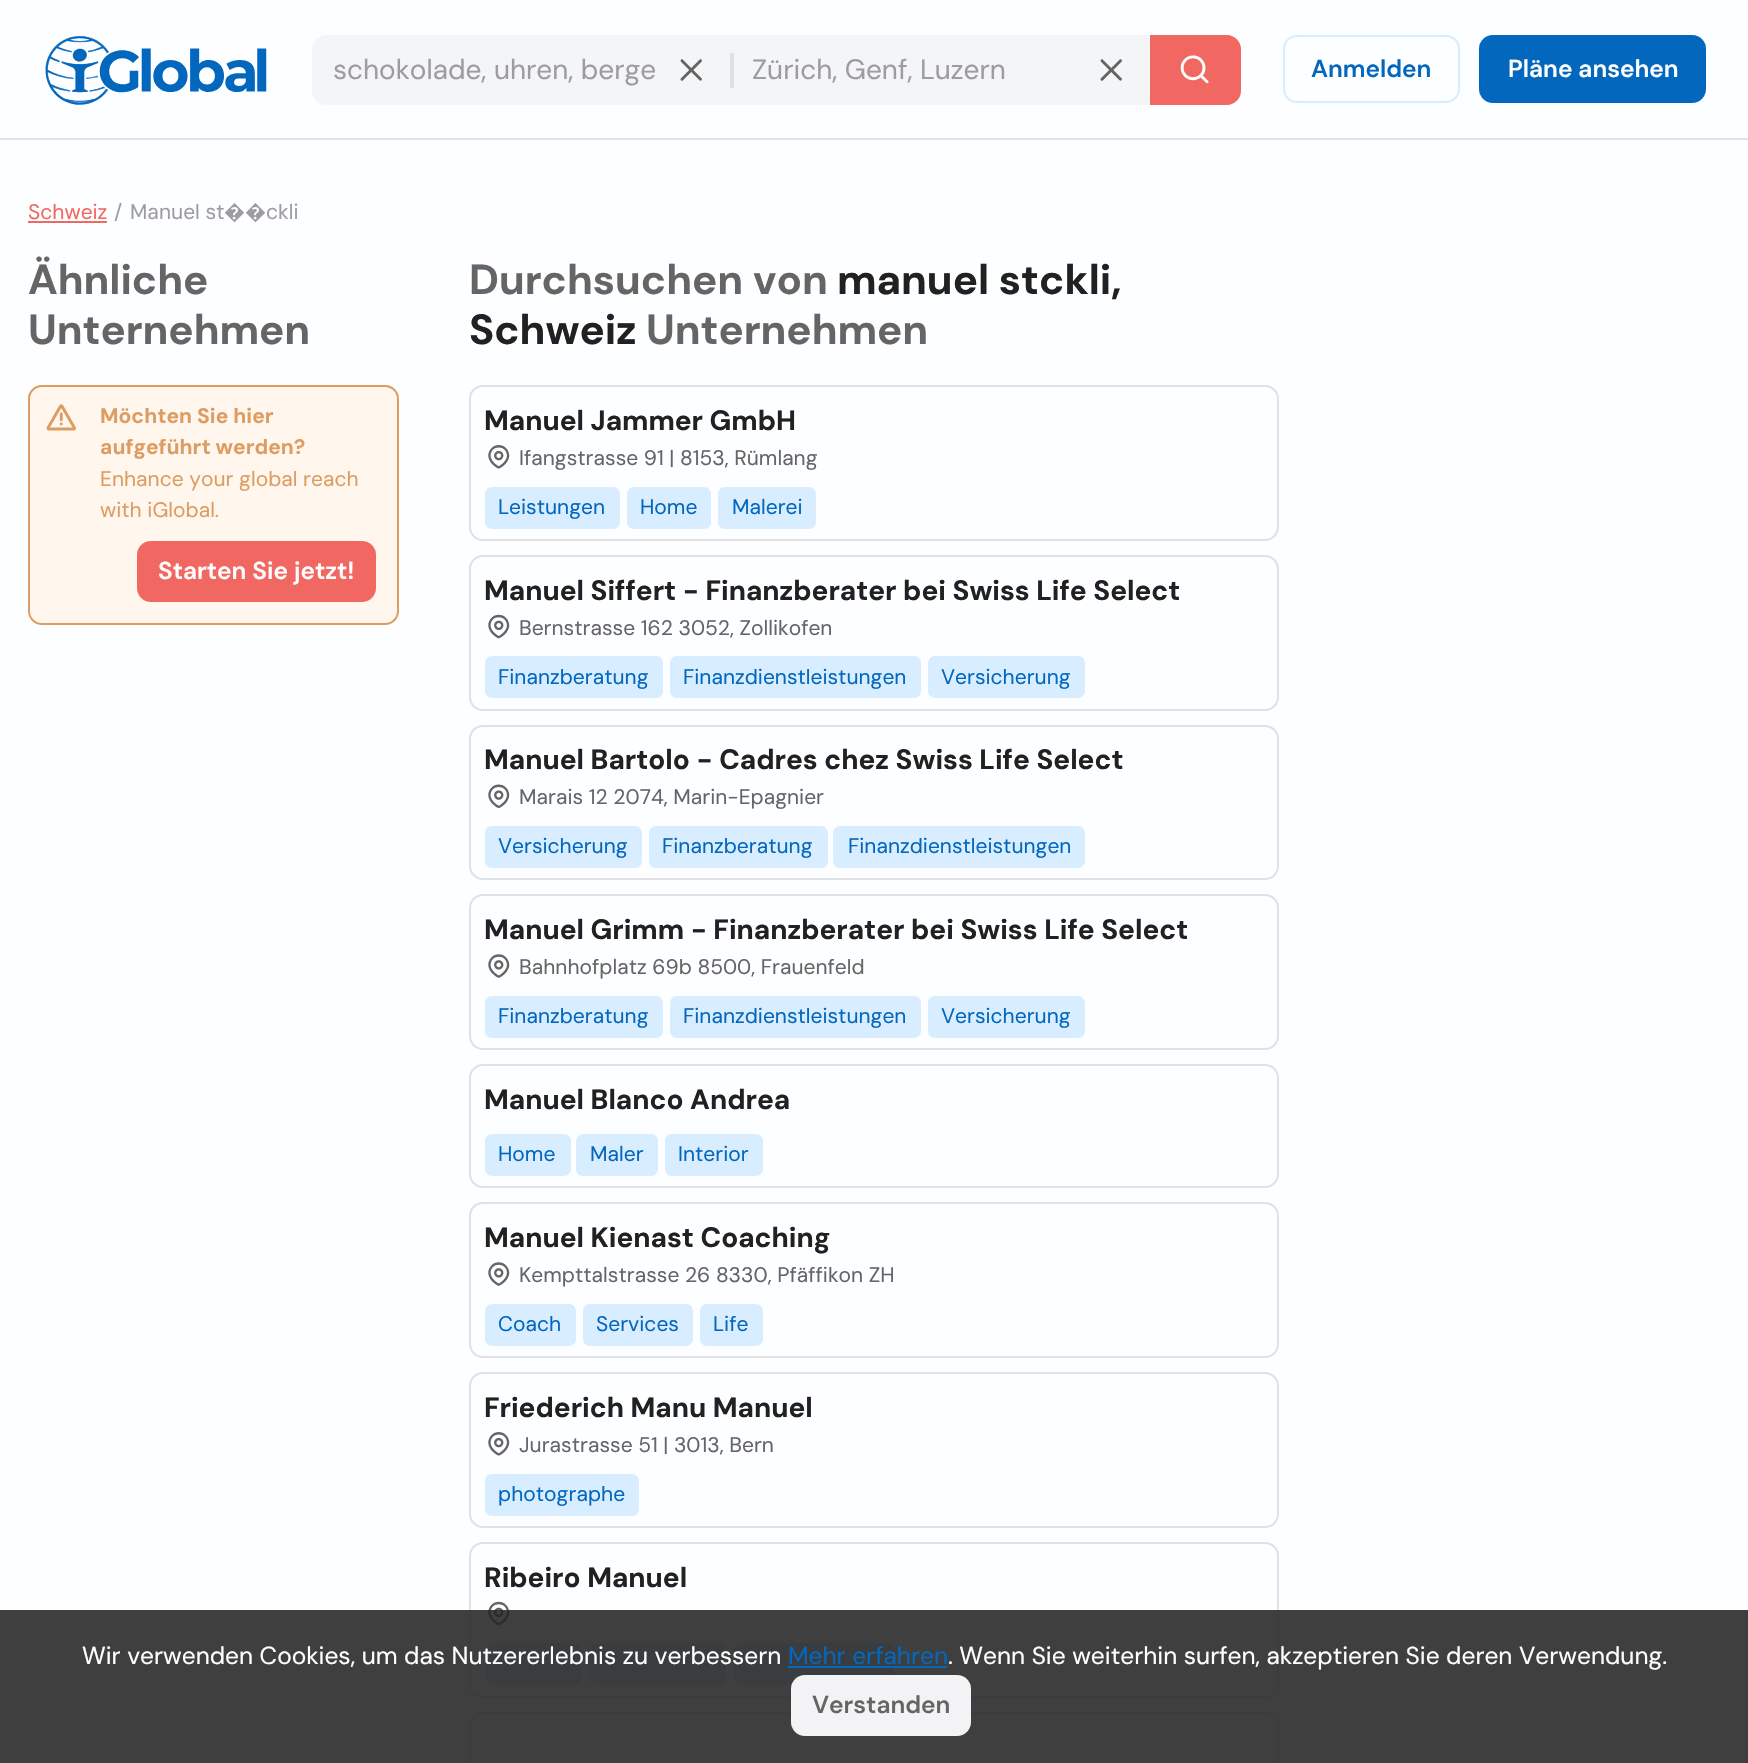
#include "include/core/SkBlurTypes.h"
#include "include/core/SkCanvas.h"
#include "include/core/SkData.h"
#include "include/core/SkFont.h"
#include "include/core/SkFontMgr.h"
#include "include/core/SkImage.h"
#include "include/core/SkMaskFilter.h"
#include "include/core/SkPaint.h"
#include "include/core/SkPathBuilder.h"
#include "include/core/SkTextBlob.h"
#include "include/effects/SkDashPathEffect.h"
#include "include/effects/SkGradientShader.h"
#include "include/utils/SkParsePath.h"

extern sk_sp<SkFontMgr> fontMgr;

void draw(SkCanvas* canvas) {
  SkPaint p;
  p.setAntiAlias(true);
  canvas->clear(SkColorSetRGB(252, 254, 255));
  p.setColor(SkColorSetRGB(225, 225, 229));
  canvas->drawRect(SkRect::MakeLTRB(0, 138, 1748, 140), p);
  canvas->drawImageRect(SkImages::DeferredFromEncodedData(SkData::MakeFromFileName("images/1.png")), SkRect::MakeLTRB(45, 36, 267, 105), SkSamplingOptions());
  p.setColor(SkColorSetRGB(244, 245, 246));
  canvas->drawPath(SkPathBuilder().moveTo(326, 35).lineTo(730, 35).lineTo(730, 105).lineTo(326, 105).cubicTo(318.5f, 105, 312, 98.5f, 312, 91).lineTo(312, 49).cubicTo(312, 41.5f, 318.5f, 35, 326, 35).close().detach(), p);
  canvas->drawImageRect(SkImages::DeferredFromEncodedData(SkData::MakeFromFileName("images/2.png")), SkRect::MakeLTRB(680, 59, 702, 81), SkSamplingOptions());
  canvas->drawRect(SkRect::MakeLTRB(730, 35, 1150, 105), p);
  p.setColor(SkColorSetRGB(225, 225, 229));
  canvas->drawRect(SkRect::MakeLTRB(730, 53, 734, 88), p);
  canvas->drawImageRect(SkImages::DeferredFromEncodedData(SkData::MakeFromFileName("images/3.png")), SkRect::MakeLTRB(1100, 59, 1122, 81), SkSamplingOptions());
  p.setColor(SkColorSetRGB(241, 104, 98));
  canvas->drawPath(SkPathBuilder().moveTo(1150, 35).lineTo(1227, 35).cubicTo(1234.5f, 35, 1241, 41.5f, 1241, 49).lineTo(1241, 91).cubicTo(1241, 98.5f, 1234.5f, 105, 1227, 105).lineTo(1150, 105).close().detach(), p);
  canvas->drawImageRect(SkImages::DeferredFromEncodedData(SkData::MakeFromFileName("images/4.png")), SkRect::MakeLTRB(1180, 55, 1209, 84), SkSamplingOptions());
  p.setStyle(SkPaint::kStroke_Style);
  p.setStrokeWidth(2);
  p.setColor(SkColorSetRGB(216, 237, 255));
  canvas->drawRoundRect(SkRect::MakeLTRB(1284, 36, 1459, 102), 13, 13, p);
  p.setStyle(SkPaint::kFill_Style);
  p.setColor(SkColorSetRGB(3, 103, 189));
  canvas->drawRoundRect(SkRect::MakeLTRB(1479, 35, 1706, 103), 14, 14, p);
  p.setColor(SkColorSetRGB(241, 104, 98));
  canvas->drawRect(SkRect::MakeLTRB(28, 221, 107, 223), p);
  p.setColor(SkColorSetRGB(255, 246, 237));
  canvas->drawRoundRect(SkRect::MakeLTRB(29, 386, 398, 624), 13, 13, p);
  p.setStyle(SkPaint::kStroke_Style);
  p.setColor(SkColorSetRGB(221, 157, 98));
  canvas->drawRoundRect(SkRect::MakeLTRB(29, 386, 398, 624), 13, 13, p);
  canvas->drawImageRect(SkImages::DeferredFromEncodedData(SkData::MakeFromFileName("images/5.png")), SkRect::MakeLTRB(46, 404, 76, 431), SkSamplingOptions());
  p.setStyle(SkPaint::kFill_Style);
  p.setColor(SkColorSetRGB(241, 104, 98));
  canvas->drawRoundRect(SkRect::MakeLTRB(137, 541, 376, 602), 14, 14, p);
  p.setStyle(SkPaint::kStroke_Style);
  p.setColor(SkColorSetRGB(225, 225, 229));
  canvas->drawRoundRect(SkRect::MakeLTRB(470, 386, 1278, 540), 13, 13, p);
  canvas->drawImageRect(SkImages::DeferredFromEncodedData(SkData::MakeFromFileName("images/6.png")), SkRect::MakeLTRB(488, 445, 510, 469), SkSamplingOptions());
  p.setStyle(SkPaint::kFill_Style);
  p.setColor(SkColorSetRGB(216, 237, 255));
  canvas->drawRoundRect(SkRect::MakeLTRB(485, 487, 620, 529), 7, 7, p);
  canvas->drawRoundRect(SkRect::MakeLTRB(627, 487, 711, 529), 7, 7, p);
  canvas->drawRoundRect(SkRect::MakeLTRB(718, 487, 816, 529), 7, 7, p);
  p.setStyle(SkPaint::kStroke_Style);
  p.setColor(SkColorSetRGB(225, 225, 229));
  canvas->drawRoundRect(SkRect::MakeLTRB(470, 556, 1278, 710), 13, 13, p);
  canvas->drawImageRect(SkImages::DeferredFromEncodedData(SkData::MakeFromFileName("images/7.png")), SkRect::MakeLTRB(488, 614, 510, 639), SkSamplingOptions());
  p.setStyle(SkPaint::kFill_Style);
  p.setColor(SkColorSetRGB(216, 237, 255));
  canvas->drawRoundRect(SkRect::MakeLTRB(485, 656, 663, 698), 7, 7, p);
  canvas->drawRoundRect(SkRect::MakeLTRB(670, 656, 921, 698), 7, 7, p);
  canvas->drawRoundRect(SkRect::MakeLTRB(928, 656, 1085, 698), 7, 7, p);
  p.setStyle(SkPaint::kStroke_Style);
  p.setColor(SkColorSetRGB(225, 225, 229));
  canvas->drawRoundRect(SkRect::MakeLTRB(470, 726, 1278, 879), 13, 13, p);
  canvas->drawImageRect(SkImages::DeferredFromEncodedData(SkData::MakeFromFileName("images/8.png")), SkRect::MakeLTRB(488, 784, 510, 808), SkSamplingOptions());
  p.setStyle(SkPaint::kFill_Style);
  p.setColor(SkColorSetRGB(216, 237, 255));
  canvas->drawRoundRect(SkRect::MakeLTRB(485, 826, 642, 868), 7, 7, p);
  canvas->drawRoundRect(SkRect::MakeLTRB(649, 826, 828, 868), 7, 7, p);
  canvas->drawRoundRect(SkRect::MakeLTRB(833, 826, 1085, 868), 7, 7, p);
  p.setStyle(SkPaint::kStroke_Style);
  p.setColor(SkColorSetRGB(225, 225, 229));
  canvas->drawRoundRect(SkRect::MakeLTRB(470, 895, 1278, 1049), 13, 13, p);
  canvas->drawImageRect(SkImages::DeferredFromEncodedData(SkData::MakeFromFileName("images/9.png")), SkRect::MakeLTRB(488, 954, 510, 978), SkSamplingOptions());
  p.setStyle(SkPaint::kFill_Style);
  p.setColor(SkColorSetRGB(216, 237, 255));
  canvas->drawRoundRect(SkRect::MakeLTRB(485, 996, 663, 1038), 7, 7, p);
  canvas->drawRoundRect(SkRect::MakeLTRB(670, 996, 921, 1038), 7, 7, p);
  canvas->drawRoundRect(SkRect::MakeLTRB(928, 996, 1085, 1038), 7, 7, p);
  p.setStyle(SkPaint::kStroke_Style);
  p.setColor(SkColorSetRGB(225, 225, 229));
  canvas->drawRoundRect(SkRect::MakeLTRB(470, 1065, 1278, 1187), 13, 13, p);
  p.setStyle(SkPaint::kFill_Style);
  p.setColor(SkColorSetRGB(216, 237, 255));
  canvas->drawRoundRect(SkRect::MakeLTRB(485, 1134, 571, 1176), 7, 7, p);
  canvas->drawRoundRect(SkRect::MakeLTRB(576, 1134, 658, 1176), 7, 7, p);
  canvas->drawRoundRect(SkRect::MakeLTRB(665, 1134, 763, 1176), 7, 7, p);
  p.setStyle(SkPaint::kStroke_Style);
  p.setColor(SkColorSetRGB(225, 225, 229));
  canvas->drawRoundRect(SkRect::MakeLTRB(470, 1203, 1278, 1357), 13, 13, p);
  canvas->drawImageRect(SkImages::DeferredFromEncodedData(SkData::MakeFromFileName("images/10.png")), SkRect::MakeLTRB(488, 1262, 510, 1286), SkSamplingOptions());
  p.setStyle(SkPaint::kFill_Style);
  p.setColor(SkColorSetRGB(216, 237, 255));
  canvas->drawRoundRect(SkRect::MakeLTRB(485, 1304, 576, 1346), 7, 7, p);
  canvas->drawRoundRect(SkRect::MakeLTRB(583, 1304, 693, 1346), 7, 7, p);
  canvas->drawRoundRect(SkRect::MakeLTRB(700, 1304, 763, 1346), 7, 7, p);
  p.setStyle(SkPaint::kStroke_Style);
  p.setColor(SkColorSetRGB(225, 225, 229));
  canvas->drawRoundRect(SkRect::MakeLTRB(470, 1373, 1278, 1527), 13, 13, p);
  canvas->drawImageRect(SkImages::DeferredFromEncodedData(SkData::MakeFromFileName("images/6.png")), SkRect::MakeLTRB(488, 1432, 510, 1456), SkSamplingOptions());
  p.setStyle(SkPaint::kFill_Style);
  p.setColor(SkColorSetRGB(216, 237, 255));
  canvas->drawRoundRect(SkRect::MakeLTRB(485, 1474, 639, 1516), 7, 7, p);
  p.setStyle(SkPaint::kStroke_Style);
  p.setColor(SkColorSetRGB(225, 225, 229));
  canvas->drawRoundRect(SkRect::MakeLTRB(470, 1543, 1278, 1697), 13, 13, p);
  canvas->drawImageRect(SkImages::DeferredFromEncodedData(SkData::MakeFromFileName("images/7.png")), SkRect::MakeLTRB(488, 1601, 510, 1626), SkSamplingOptions());
  p.setStyle(SkPaint::kFill_Style);
  p.setColor(SkColorSetRGB(216, 237, 255));
  canvas->drawRoundRect(SkRect::MakeLTRB(485, 1643, 581, 1685), 7, 7, p);
  canvas->drawRoundRect(SkRect::MakeLTRB(588, 1643, 726, 1685), 7, 7, p);
  canvas->drawRoundRect(SkRect::MakeLTRB(733, 1643, 893, 1685), 7, 7, p);
  p.setStyle(SkPaint::kStroke_Style);
  p.setColor(SkColorSetRGB(225, 225, 229));
  canvas->drawRoundRect(SkRect::MakeLTRB(470, 1713, 1278, 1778), 13, 13, p);
  p.setStyle(SkPaint::kFill_Style);
  p.setColor(SkColorSetARGB(222, 34, 34, 34));
  canvas->drawRect(SkRect::MakeLTRB(0, 1610, 1748, 1763), p);
  p.setColor(SkColorSetRGB(3, 103, 189));
  canvas->drawRect(SkRect::MakeLTRB(788, 1666, 947, 1668), p);
  p.setColor(SkColorSetRGB(243, 243, 245));
  canvas->drawRoundRect(SkRect::MakeLTRB(791, 1675, 971, 1736), 14, 14, p);
  SkFont font1(fontMgr->matchFamilyStyle("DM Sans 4", SkFontStyle::Normal()), 28);
  font1.setSubpixel(true);
  p.setColor(SkColorSetRGB(157, 156, 158));
  canvas->drawString("schokolade, uhren, berge", 333, 79, font1, p);
  canvas->drawString("Zürich, Genf, Luzern", 752, 79, font1, p);
  SkFont font2(fontMgr->matchFamilyStyle("DM Sans", SkFontStyle(600, SkFontStyle::kNormal_Width, SkFontStyle::kUpright_Slant)), 24.5f);
  font2.setSubpixel(true);
  p.setColor(SkColorSetRGB(3, 103, 189));
  canvas->drawString("Anmelden", 1311, 77, font2, p);
  p.setColor(SK_ColorWHITE);
  canvas->drawString("Pläne ansehen", 1508, 77, font2, p);
  SkFont font3(fontMgr->matchFamilyStyle("DM Sans", SkFontStyle::Normal()), 21);
  font3.setSubpixel(true);
  p.setColor(SkColorSetRGB(241, 104, 98));
  canvas->drawString("Schweiz", 28, 219, font3, p);
  p.setColor(SkColorSetRGB(157, 156, 158));
  canvas->drawString("/", 114, 219, font3, p);
  SkFont font4(fontMgr->matchFamilyStyle("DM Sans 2", SkFontStyle::Normal()), 21);
  font4.setSubpixel(true);
  canvas->drawString("Manuel st", 130, 219, font4, p);
  SkFont font5(fontMgr->matchFamilyStyle("Noto Sans", SkFontStyle::Normal()), 21);
  font5.setSubpixel(true);
  canvas->drawString("��", 224, 219, font5, p);
  canvas->drawString("ckli", 266, 219, font4, p);
  SkFont font6(fontMgr->matchFamilyStyle("DM Sans", SkFontStyle::Bold()), 42);
  font6.setSubpixel(true);
  p.setColor(SkColorSetRGB(101, 101, 102));
  canvas->drawString("Ähnliche", 28, 294, font6, p);
  canvas->drawString("Unternehmen", 28, 344, font6, p);
  SkFont font7(fontMgr->matchFamilyStyle("DM Sans 2", SkFontStyle::Bold()), 21);
  font7.setSubpixel(true);
  p.setColor(SkColorSetRGB(221, 157, 98));
  canvas->drawString("Möchten Sie hier", 100, 423, font7, p);
  canvas->drawString("aufgeführt werden?", 100, 454, font7, p);
  canvas->drawString("Enhance your global reach", 100, 486, font3, p);
  canvas->drawString("with iGlobal.", 100, 517, font3, p);
  p.setColor(SK_ColorWHITE);
  canvas->drawString("Starten Sie jetzt!", 158, 579, font2, p);
  p.setColor(SkColorSetRGB(101, 101, 102));
  canvas->drawString("Durchsuchen von", 469, 294, font6, p);
  p.setColor(SkColorSetRGB(33, 33, 33));
  canvas->drawString("manuel stckli,", 837, 294, font6, p);
  canvas->drawString("Schweiz", 469, 344, font6, p);
  p.setColor(SkColorSetRGB(101, 101, 102));
  canvas->drawString("Unternehmen", 646, 344, font6, p);
  SkFont font8(fontMgr->matchFamilyStyle("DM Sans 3", SkFontStyle::Bold()), 28);
  font8.setSubpixel(true);
  p.setColor(SkColorSetRGB(33, 33, 33));
  canvas->drawString("Manuel Jammer GmbH", 484, 430, font8, p);
  p.setColor(SkColorSetRGB(101, 101, 102));
  canvas->drawString("Ifangstrasse 91 | 8153, Rümlang", 519, 465, font3, p);
  p.setColor(SkColorSetRGB(3, 103, 189));
  canvas->drawString("Leistungen", 498, 514, font3, p);
  canvas->drawString("Home", 640, 514, font3, p);
  canvas->drawString("Malerei", 732, 514, font3, p);
  p.setColor(SkColorSetRGB(33, 33, 33));
  canvas->drawString("Manuel Siffert - Finanzberater bei Swiss Life Select", 484, 600, font8, p);
  p.setColor(SkColorSetRGB(101, 101, 102));
  canvas->drawString("Bernstrasse 162 3052, Zollikofen", 519, 635, font3, p);
  p.setColor(SkColorSetRGB(3, 103, 189));
  canvas->drawString("Finanzberatung", 498, 684, font3, p);
  canvas->drawString("Finanzdienstleistungen", 683, 684, font3, p);
  canvas->drawString("Versicherung", 941, 684, font3, p);
  p.setColor(SkColorSetRGB(33, 33, 33));
  canvas->drawString("Manuel Bartolo - Cadres chez Swiss Life Select", 484, 769, font8, p);
  p.setColor(SkColorSetRGB(101, 101, 102));
  canvas->drawString("Marais 12 2074, Marin-Epagnier", 519, 804, font3, p);
  p.setColor(SkColorSetRGB(3, 103, 189));
  canvas->drawString("Versicherung", 498, 853, font3, p);
  canvas->drawString("Finanzberatung", 662, 853, font3, p);
  canvas->drawString("Finanzdienstleistungen", 848, 853, font3, p);
  p.setColor(SkColorSetRGB(33, 33, 33));
  canvas->drawString("Manuel Grimm - Finanzberater bei Swiss Life Select", 484, 939, font8, p);
  p.setColor(SkColorSetRGB(101, 101, 102));
  canvas->drawString("Bahnhofplatz 69b 8500, Frauenfeld", 519, 974, font3, p);
  p.setColor(SkColorSetRGB(3, 103, 189));
  canvas->drawString("Finanzberatung", 498, 1023, font3, p);
  canvas->drawString("Finanzdienstleistungen", 683, 1023, font3, p);
  canvas->drawString("Versicherung", 941, 1023, font3, p);
  p.setColor(SkColorSetRGB(33, 33, 33));
  canvas->drawString("Manuel Blanco Andrea", 484, 1109, font8, p);
  p.setColor(SkColorSetRGB(3, 103, 189));
  canvas->drawString("Home", 498, 1161, font3, p);
  canvas->drawString("Maler", 590, 1161, font3, p);
  canvas->drawString("Interior", 678, 1161, font3, p);
  p.setColor(SkColorSetRGB(33, 33, 33));
  canvas->drawString("Manuel Kienast Coaching", 484, 1247, font8, p);
  p.setColor(SkColorSetRGB(101, 101, 102));
  canvas->drawString("Kempttalstrasse 26 8330, Pfäffikon ZH", 519, 1282, font3, p);
  p.setColor(SkColorSetRGB(3, 103, 189));
  canvas->drawString("Coach", 498, 1331, font3, p);
  canvas->drawString("Services", 596, 1331, font3, p);
  canvas->drawString("Life", 713, 1331, font3, p);
  p.setColor(SkColorSetRGB(33, 33, 33));
  canvas->drawString("Friederich Manu Manuel", 484, 1417, font8, p);
  p.setColor(SkColorSetRGB(101, 101, 102));
  canvas->drawString("Jurastrasse 51 | 3013, Bern", 519, 1452, font3, p);
  p.setColor(SkColorSetRGB(3, 103, 189));
  canvas->drawString("photographe", 498, 1501, font3, p);
  p.setColor(SkColorSetRGB(33, 33, 33));
  canvas->drawString("Ribeiro Manuel", 484, 1587, font8, p);
  SkFont font9(fontMgr->matchFamilyStyle("DM Sans 3", SkFontStyle::Normal()), 24.5f);
  font9.setSubpixel(true);
  p.setColor(SK_ColorWHITE);
  canvas->drawString("Wir verwenden Cookies, um das Nutzererlebnis zu verbessern", 82, 1664, font9, p);
  p.setColor(SkColorSetRGB(3, 103, 189));
  canvas->drawString("Mehr erfahren", 788, 1664, font9, p);
  p.setColor(SK_ColorWHITE);
  canvas->drawString(". Wenn Sie weiterhin surfen, akzeptieren Sie deren Verwendung.", 948, 1664, font9, p);
  p.setColor(SkColorSetRGB(101, 101, 102));
  canvas->drawString("Verstanden", 812, 1713, font2, p);
}
